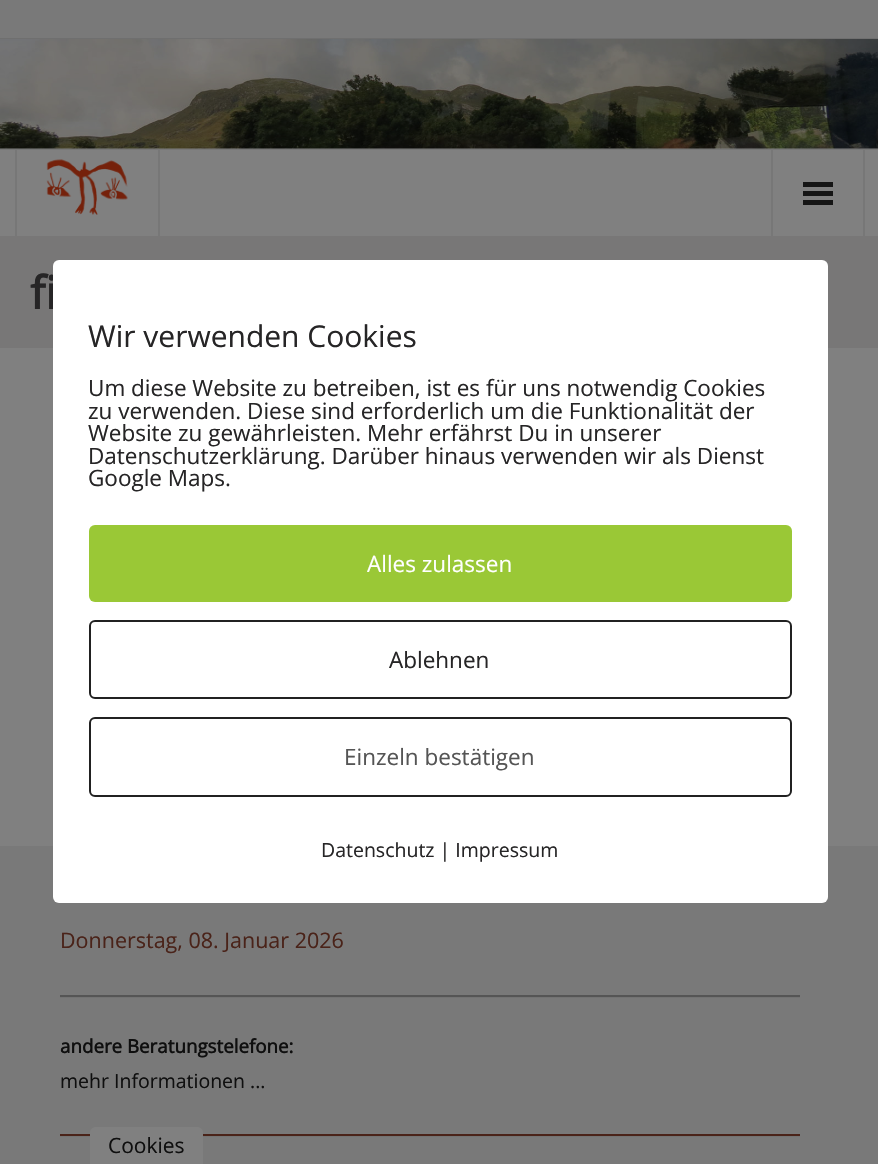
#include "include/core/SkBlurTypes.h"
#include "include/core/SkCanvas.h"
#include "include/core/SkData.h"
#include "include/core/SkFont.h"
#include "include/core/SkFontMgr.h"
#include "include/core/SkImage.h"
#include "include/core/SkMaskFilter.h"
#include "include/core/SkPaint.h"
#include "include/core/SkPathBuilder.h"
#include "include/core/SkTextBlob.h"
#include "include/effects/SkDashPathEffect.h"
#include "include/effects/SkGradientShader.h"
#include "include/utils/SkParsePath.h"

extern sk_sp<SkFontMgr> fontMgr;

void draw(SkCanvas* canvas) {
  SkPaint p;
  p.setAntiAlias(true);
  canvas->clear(SkColorSetRGB(121, 121, 121));
  p.setColor(SkColorSetRGB(128, 128, 128));
  canvas->drawRect(SkRect::MakeLTRB(0, 148, 878, 846), p);
  p.setColor(SkColorSetRGB(111, 111, 111));
  canvas->drawRect(SkRect::MakeLTRB(0, 38, 878, 39), p);
  canvas->drawImageRect(SkImages::DeferredFromEncodedData(SkData::MakeFromFileName("images/1.png")), SkRect::MakeLTRB(0, 39, 878, 149), SkSamplingOptions());
  p.setColor(SkColorSetRGB(119, 119, 119));
  canvas->drawRect(SkRect::MakeLTRB(0, 149, 878, 150), p);
  canvas->drawRect(SkRect::MakeLTRB(158, 150, 160, 236), p);
  canvas->drawRect(SkRect::MakeLTRB(15, 150, 17, 236), p);
  canvas->drawImageRect(SkImages::DeferredFromEncodedData(SkData::MakeFromFileName("images/2.png")), SkRect::MakeLTRB(46, 159, 128, 215), SkSamplingOptions());
  canvas->drawRect(SkRect::MakeLTRB(863, 150, 865, 236), p);
  canvas->drawRect(SkRect::MakeLTRB(771, 150, 773, 236), p);
  p.setColor(SkColorSetRGB(21, 21, 21));
  canvas->drawRect(SkRect::MakeLTRB(803, 182, 833, 187), p);
  canvas->drawRect(SkRect::MakeLTRB(803, 191, 833, 196), p);
  canvas->drawRect(SkRect::MakeLTRB(803, 200, 833, 205), p);
  p.setColor(SkColorSetRGB(120, 119, 119));
  canvas->drawRect(SkRect::MakeLTRB(0, 236, 878, 348), p);
  p.setColor(SkColorSetRGB(115, 115, 115));
  canvas->drawRect(SkRect::MakeLTRB(60, 997, 800, 998), p);
  p.setColor(SkColorSetRGB(85, 85, 85));
  canvas->drawRect(SkRect::MakeLTRB(60, 995, 800, 997), p);
  p.setColor(SkColorSetRGB(115, 115, 115));
  canvas->drawRect(SkRect::MakeLTRB(60, 1136, 800, 1137), p);
  p.setColor(SkColorSetRGB(74, 35, 25));
  canvas->drawRect(SkRect::MakeLTRB(60, 1134, 800, 1136), p);
  p.setColor(SkColorSetRGB(128, 128, 128));
  canvas->drawPath(SkPathBuilder().moveTo(96, 1127).lineTo(197, 1127).cubicTo(200.5f, 1127, 203, 1129.5f, 203, 1133).lineTo(203, 1164).lineTo(90, 1164).lineTo(90, 1133).cubicTo(90, 1129.5f, 92.5f, 1127, 96, 1127).close().detach(), p);
  SkFont font1(fontMgr->matchFamilyStyle("Open Sans", SkFontStyle::Bold()), 45);
  font1.setSubpixel(true);
  p.setColor(SkColorSetRGB(38, 37, 38));
  canvas->drawString("fi", 30, 309, font1, p);
  SkFont font2(fontMgr->matchFamilyStyle("Open Sans", SkFontStyle::Normal()), 21.5f);
  font2.setSubpixel(true);
  p.setColor(SkColorSetRGB(74, 35, 25));
  canvas->drawString("Donnerstag, 08. Januar 2026", 60, 948, font2, p);
  SkFont font3(fontMgr->matchFamilyStyle("Open Sans", SkFontStyle::Bold()), 18.75f);
  font3.setSubpixel(true);
  p.setColor(SkColorSetRGB(15, 15, 15));
  canvas->drawString("andere Beratungstelefone:", 60, 1053, font3, p);
  SkFont font4(fontMgr->matchFamilyStyle("Open Sans", SkFontStyle::Normal()), 19.5f);
  font4.setSubpixel(true);
  canvas->drawString("mehr Informationen ...", 60, 1088, font4, p);
  p.setColor(SK_ColorWHITE);
  canvas->drawRoundRect(SkRect::MakeLTRB(53, 260, 828, 903), 6, 6, p);
  SkFont font5(fontMgr->matchFamilyStyle("Open Sans", SkFontStyle::Normal()), 30);
  font5.setSubpixel(true);
  p.setColor(SkColorSetRGB(38, 37, 38));
  canvas->drawString("Wir verwenden Cookies", 88, 347, font5, p);
  SkFont font6(fontMgr->matchFamilyStyle("Open Sans", SkFontStyle::Normal()), 22.5f);
  font6.setSubpixel(true);
  canvas->drawString("Um diese Website zu betreiben, ist es für uns notwendig Cookies", 88, 396, font6, p);
  canvas->drawString("zu verwenden. Diese sind erforderlich um die Funktionalität der", 88, 419, font6, p);
  canvas->drawString("Website zu gewährleisten. Mehr erfährst Du in unserer", 88, 441, font6, p);
  canvas->drawString("Datenschutzerklärung. Darüber hinaus verwenden wir als Dienst", 88, 464, font6, p);
  canvas->drawString("Google Maps.", 88, 486, font6, p);
  p.setColor(SkColorSetRGB(154, 200, 54));
  canvas->drawRoundRect(SkRect::MakeLTRB(89, 525, 792, 602), 6, 6, p);
  p.setColor(SK_ColorWHITE);
  canvas->drawString("Alles zulassen", 367, 572, font6, p);
  p.setStyle(SkPaint::kStroke_Style);
  p.setStrokeWidth(2);
  p.setColor(SkColorSetRGB(33, 33, 33));
  canvas->drawRoundRect(SkRect::MakeLTRB(90, 621, 791, 698), 5, 5, p);
  p.setStyle(SkPaint::kFill_Style);
  p.setColor(SkColorSetRGB(38, 37, 38));
  canvas->drawString("Ablehnen", 389, 668, font6, p);
  p.setStyle(SkPaint::kStroke_Style);
  p.setColor(SkColorSetRGB(33, 33, 33));
  canvas->drawRoundRect(SkRect::MakeLTRB(90, 718, 791, 796), 5, 5, p);
  p.setStyle(SkPaint::kFill_Style);
  p.setColor(SkColorSetRGB(85, 85, 85));
  canvas->drawString("Einzeln bestätigen", 344, 765, font6, p);
  p.setColor(SkColorSetRGB(38, 37, 38));
  canvas->drawString("Datenschutz | Impressum", 321, 857, font4, p);
  SkFont font7(fontMgr->matchFamilyStyle("Open Sans", SkFontStyle::Normal()), 21);
  font7.setSubpixel(true);
  p.setColor(SkColorSetRGB(15, 15, 15));
  canvas->drawString("Cookies", 108, 1153, font7, p);
}
